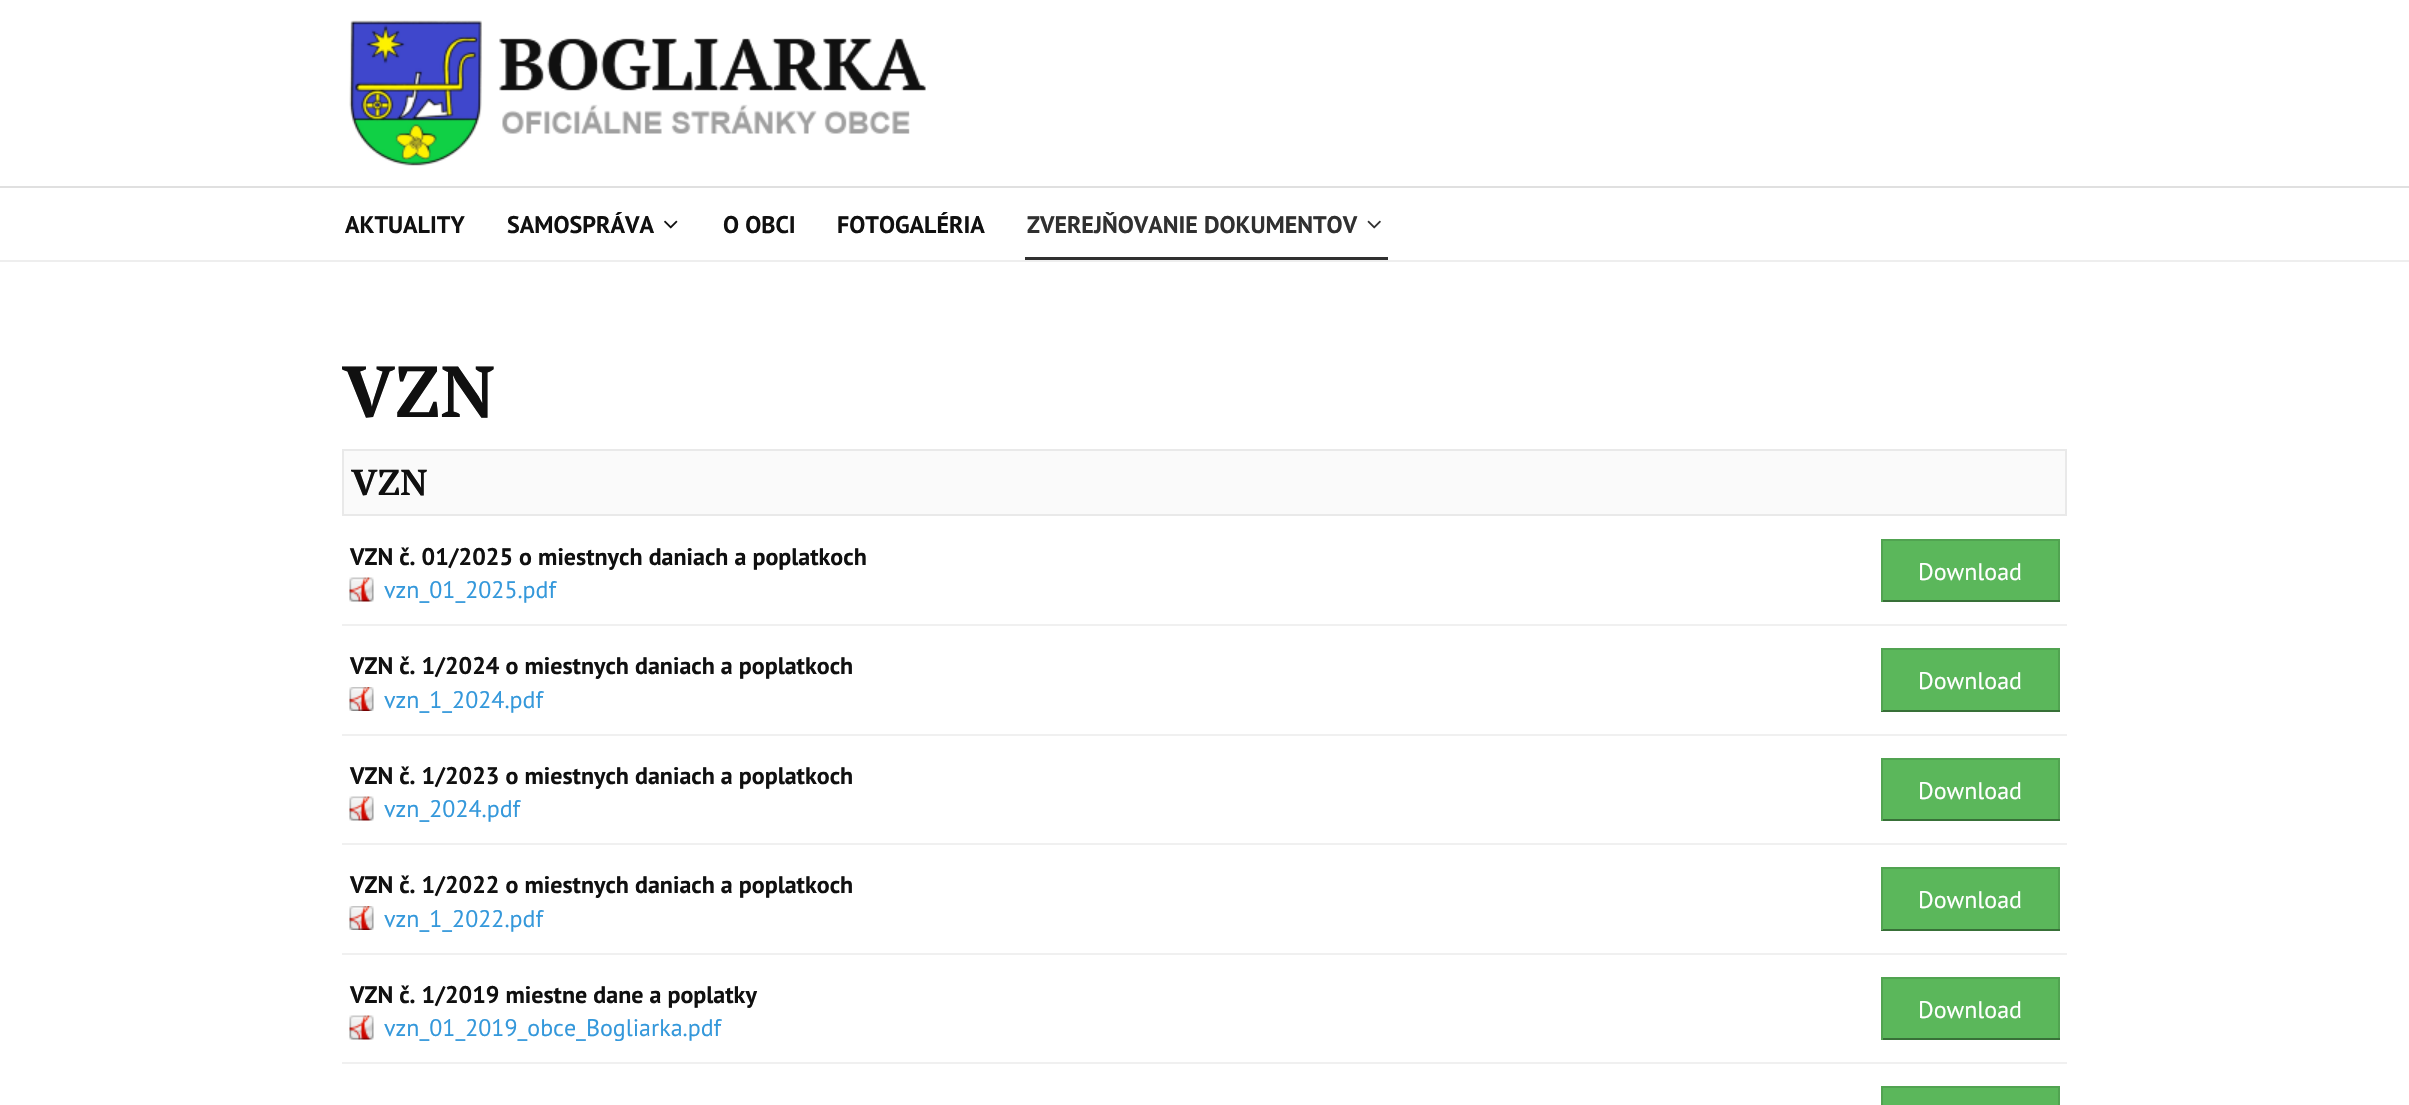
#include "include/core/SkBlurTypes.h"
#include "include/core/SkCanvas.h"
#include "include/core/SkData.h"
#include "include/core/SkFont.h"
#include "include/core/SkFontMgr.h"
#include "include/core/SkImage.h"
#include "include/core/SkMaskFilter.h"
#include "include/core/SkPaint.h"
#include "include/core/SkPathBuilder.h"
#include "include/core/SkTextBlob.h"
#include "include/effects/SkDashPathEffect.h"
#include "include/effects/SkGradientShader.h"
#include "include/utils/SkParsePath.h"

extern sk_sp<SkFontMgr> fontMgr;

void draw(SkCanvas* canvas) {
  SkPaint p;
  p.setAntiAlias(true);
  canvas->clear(SK_ColorWHITE);
  p.setColor(SkColorSetRGB(224, 224, 224));
  canvas->drawRect(SkRect::MakeLTRB(0, 186, 2409, 188), p);
  canvas->drawImageRect(SkImages::DeferredFromEncodedData(SkData::MakeFromFileName("images/1.png")), SkRect::MakeLTRB(349, 20, 926, 166), SkSamplingOptions());
  p.setColor(SkColorSetRGB(238, 238, 238));
  canvas->drawRect(SkRect::MakeLTRB(0, 260, 2409, 262), p);
  canvas->drawImageRect(SkImages::DeferredFromEncodedData(SkData::MakeFromFileName("images/2.png")), SkRect::MakeLTRB(664, 220, 678, 229), SkSamplingOptions());
  canvas->drawImageRect(SkImages::DeferredFromEncodedData(SkData::MakeFromFileName("images/3.png")), SkRect::MakeLTRB(1367, 220, 1381, 229), SkSamplingOptions());
  p.setColor(SkColorSetRGB(48, 48, 48));
  canvas->drawRect(SkRect::MakeLTRB(1025, 257, 1388, 260), p);
  p.setColor(SkColorSetRGB(250, 250, 250));
  canvas->drawRect(SkRect::MakeLTRB(343, 450, 2066, 515), p);
  p.setStyle(SkPaint::kStroke_Style);
  p.setStrokeWidth(2);
  p.setColor(SkColorSetRGB(233, 233, 233));
  canvas->drawRect(SkRect::MakeLTRB(343, 450, 2066, 515), p);
  p.setStyle(SkPaint::kFill_Style);
  p.setColor(SkColorSetRGB(240, 240, 240));
  canvas->drawRect(SkRect::MakeLTRB(342, 624, 2067, 626), p);
  canvas->drawImageRect(SkImages::DeferredFromEncodedData(SkData::MakeFromFileName("images/4.png")), SkRect::MakeLTRB(349, 577, 374, 602), SkSamplingOptions());
  p.setColor(SkColorSetRGB(91, 183, 91));
  canvas->drawRect(SkRect::MakeLTRB(1883, 541, 2058, 600), p);
  p.setColor(SkColorSetRGB(81, 163, 81));
  canvas->drawRect(SkRect::MakeLTRB(1881, 539, 2060, 541), p);
  canvas->drawRect(SkRect::MakeLTRB(2058, 539, 2060, 602), p);
  p.setColor(SkColorSetRGB(56, 112, 56));
  canvas->drawRect(SkRect::MakeLTRB(1881, 600, 2060, 602), p);
  p.setColor(SkColorSetRGB(81, 163, 81));
  canvas->drawRect(SkRect::MakeLTRB(1881, 539, 1883, 602), p);
  p.setColor(SkColorSetRGB(240, 240, 240));
  canvas->drawRect(SkRect::MakeLTRB(342, 734, 2067, 736), p);
  canvas->drawImageRect(SkImages::DeferredFromEncodedData(SkData::MakeFromFileName("images/5.png")), SkRect::MakeLTRB(349, 687, 374, 711), SkSamplingOptions());
  p.setColor(SkColorSetRGB(91, 183, 91));
  canvas->drawRect(SkRect::MakeLTRB(1883, 650, 2058, 710), p);
  p.setColor(SkColorSetRGB(81, 163, 81));
  canvas->drawRect(SkRect::MakeLTRB(1881, 648, 2060, 650), p);
  canvas->drawRect(SkRect::MakeLTRB(2058, 648, 2060, 711), p);
  p.setColor(SkColorSetRGB(56, 112, 56));
  canvas->drawRect(SkRect::MakeLTRB(1881, 710, 2060, 712), p);
  p.setColor(SkColorSetRGB(81, 163, 81));
  canvas->drawRect(SkRect::MakeLTRB(1881, 648, 1883, 711), p);
  p.setColor(SkColorSetRGB(240, 240, 240));
  canvas->drawRect(SkRect::MakeLTRB(342, 843, 2067, 845), p);
  canvas->drawImageRect(SkImages::DeferredFromEncodedData(SkData::MakeFromFileName("images/4.png")), SkRect::MakeLTRB(349, 796, 374, 821), SkSamplingOptions());
  p.setColor(SkColorSetRGB(91, 183, 91));
  canvas->drawRect(SkRect::MakeLTRB(1883, 760, 2058, 819), p);
  p.setColor(SkColorSetRGB(81, 163, 81));
  canvas->drawRect(SkRect::MakeLTRB(1881, 758, 2060, 760), p);
  canvas->drawRect(SkRect::MakeLTRB(2058, 758, 2060, 821), p);
  p.setColor(SkColorSetRGB(56, 112, 56));
  canvas->drawRect(SkRect::MakeLTRB(1881, 819, 2060, 821), p);
  p.setColor(SkColorSetRGB(81, 163, 81));
  canvas->drawRect(SkRect::MakeLTRB(1881, 758, 1883, 821), p);
  p.setColor(SkColorSetRGB(240, 240, 240));
  canvas->drawRect(SkRect::MakeLTRB(342, 953, 2067, 955), p);
  canvas->drawImageRect(SkImages::DeferredFromEncodedData(SkData::MakeFromFileName("images/5.png")), SkRect::MakeLTRB(349, 906, 374, 930), SkSamplingOptions());
  p.setColor(SkColorSetRGB(91, 183, 91));
  canvas->drawRect(SkRect::MakeLTRB(1883, 869, 2058, 929), p);
  p.setColor(SkColorSetRGB(81, 163, 81));
  canvas->drawRect(SkRect::MakeLTRB(1881, 867, 2060, 869), p);
  canvas->drawRect(SkRect::MakeLTRB(2058, 867, 2060, 930), p);
  p.setColor(SkColorSetRGB(56, 112, 56));
  canvas->drawRect(SkRect::MakeLTRB(1881, 929, 2060, 931), p);
  p.setColor(SkColorSetRGB(81, 163, 81));
  canvas->drawRect(SkRect::MakeLTRB(1881, 867, 1883, 930), p);
  p.setColor(SkColorSetRGB(240, 240, 240));
  canvas->drawRect(SkRect::MakeLTRB(342, 1062, 2067, 1064), p);
  canvas->drawImageRect(SkImages::DeferredFromEncodedData(SkData::MakeFromFileName("images/4.png")), SkRect::MakeLTRB(349, 1015, 374, 1040), SkSamplingOptions());
  p.setColor(SkColorSetRGB(91, 183, 91));
  canvas->drawRect(SkRect::MakeLTRB(1883, 979, 2058, 1038), p);
  p.setColor(SkColorSetRGB(81, 163, 81));
  canvas->drawRect(SkRect::MakeLTRB(1881, 977, 2060, 979), p);
  canvas->drawRect(SkRect::MakeLTRB(2058, 977, 2060, 1040), p);
  p.setColor(SkColorSetRGB(56, 112, 56));
  canvas->drawRect(SkRect::MakeLTRB(1881, 1038, 2060, 1040), p);
  p.setColor(SkColorSetRGB(81, 163, 81));
  canvas->drawRect(SkRect::MakeLTRB(1881, 977, 1883, 1040), p);
  p.setColor(SkColorSetRGB(91, 183, 91));
  canvas->drawRect(SkRect::MakeLTRB(1883, 1088, 2058, 1105), p);
  p.setColor(SkColorSetRGB(81, 163, 81));
  canvas->drawRect(SkRect::MakeLTRB(1881, 1086, 2060, 1088), p);
  canvas->drawRect(SkRect::MakeLTRB(2058, 1086, 2060, 1105), p);
  canvas->drawRect(SkRect::MakeLTRB(1881, 1086, 1883, 1105), p);
  SkFont font1(fontMgr->matchFamilyStyle("PT Sans", SkFontStyle::Bold()), 24);
  font1.setSubpixel(true);
  p.setColor(SkColorSetRGB(16, 16, 16));
  canvas->drawString("AKTUALITY", 345, 233, font1, p);
  canvas->drawString("SAMOSPRÁVA", 507, 233, font1, p);
  canvas->drawString("O OBCI", 723, 233, font1, p);
  canvas->drawString("FOTOGALÉRIA", 837, 233, font1, p);
  p.setColor(SkColorSetRGB(48, 48, 48));
  canvas->drawString("ZVEREJŇOVANIE DOKUMENTOV", 1027, 233, font1, p);
  SkFont font2(fontMgr->matchFamilyStyle("PT Serif", SkFontStyle::Bold()), 72);
  font2.setSubpixel(true);
  p.setColor(SkColorSetRGB(16, 16, 16));
  canvas->drawString("VZN", 342, 417, font2, p);
  SkFont font3(fontMgr->matchFamilyStyle("PT Serif", SkFontStyle::Bold()), 36);
  font3.setSubpixel(true);
  canvas->drawString("VZN", 351, 495, font3, p);
  canvas->drawString("VZN č. 01/2025 o miestnych daniach a poplatkoch", 350, 565, font1, p);
  SkFont font4(fontMgr->matchFamilyStyle("PT Sans", SkFontStyle::Normal()), 24);
  font4.setSubpixel(true);
  p.setColor(SkColorSetRGB(52, 152, 219));
  canvas->drawString("vzn_01_2025.pdf", 384, 598, font4, p);
  p.setColor(SK_ColorWHITE);
  canvas->drawString("Download", 1918, 580, font4, p);
  p.setColor(SkColorSetRGB(16, 16, 16));
  canvas->drawString("VZN č. 1/2024 o miestnych daniach a poplatkoch", 350, 674, font1, p);
  p.setColor(SkColorSetRGB(52, 152, 219));
  canvas->drawString("vzn_1_2024.pdf", 384, 708, font4, p);
  p.setColor(SK_ColorWHITE);
  canvas->drawString("Download", 1918, 689, font4, p);
  p.setColor(SkColorSetRGB(16, 16, 16));
  canvas->drawString("VZN č. 1/2023 o miestnych daniach a poplatkoch", 350, 784, font1, p);
  p.setColor(SkColorSetRGB(52, 152, 219));
  canvas->drawString("vzn_2024.pdf", 384, 817, font4, p);
  p.setColor(SK_ColorWHITE);
  canvas->drawString("Download", 1918, 799, font4, p);
  p.setColor(SkColorSetRGB(16, 16, 16));
  canvas->drawString("VZN č. 1/2022 o miestnych daniach a poplatkoch", 350, 893, font1, p);
  p.setColor(SkColorSetRGB(52, 152, 219));
  canvas->drawString("vzn_1_2022.pdf", 384, 927, font4, p);
  p.setColor(SK_ColorWHITE);
  canvas->drawString("Download", 1918, 908, font4, p);
  p.setColor(SkColorSetRGB(16, 16, 16));
  canvas->drawString("VZN č. 1/2019 miestne dane a poplatky", 350, 1003, font1, p);
  p.setColor(SkColorSetRGB(52, 152, 219));
  canvas->drawString("vzn_01_2019_obce_Bogliarka.pdf", 384, 1036, font4, p);
  p.setColor(SK_ColorWHITE);
  canvas->drawString("Download", 1918, 1018, font4, p);
}
